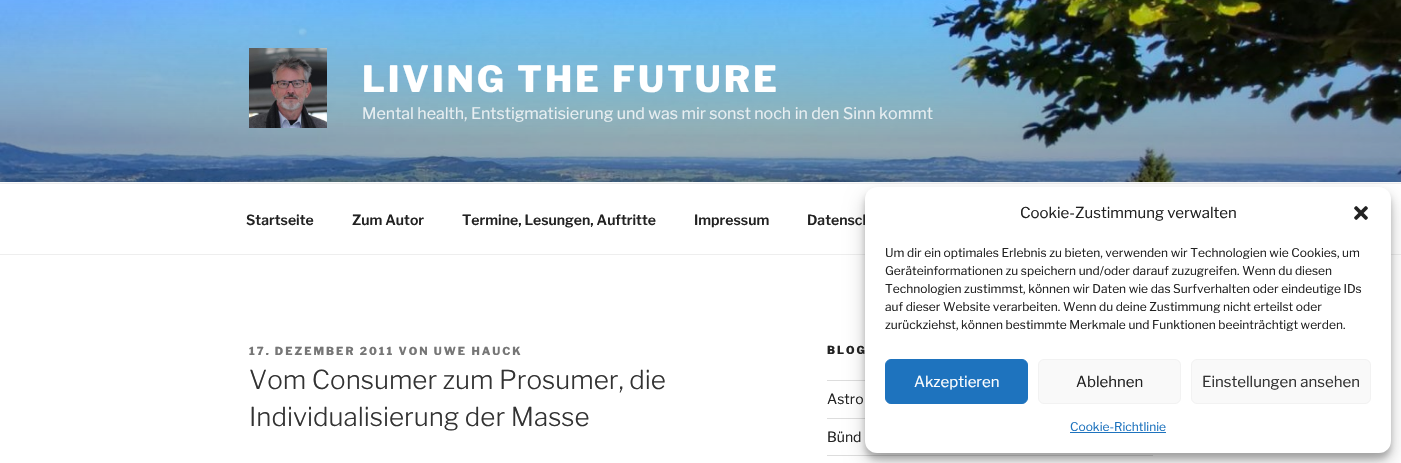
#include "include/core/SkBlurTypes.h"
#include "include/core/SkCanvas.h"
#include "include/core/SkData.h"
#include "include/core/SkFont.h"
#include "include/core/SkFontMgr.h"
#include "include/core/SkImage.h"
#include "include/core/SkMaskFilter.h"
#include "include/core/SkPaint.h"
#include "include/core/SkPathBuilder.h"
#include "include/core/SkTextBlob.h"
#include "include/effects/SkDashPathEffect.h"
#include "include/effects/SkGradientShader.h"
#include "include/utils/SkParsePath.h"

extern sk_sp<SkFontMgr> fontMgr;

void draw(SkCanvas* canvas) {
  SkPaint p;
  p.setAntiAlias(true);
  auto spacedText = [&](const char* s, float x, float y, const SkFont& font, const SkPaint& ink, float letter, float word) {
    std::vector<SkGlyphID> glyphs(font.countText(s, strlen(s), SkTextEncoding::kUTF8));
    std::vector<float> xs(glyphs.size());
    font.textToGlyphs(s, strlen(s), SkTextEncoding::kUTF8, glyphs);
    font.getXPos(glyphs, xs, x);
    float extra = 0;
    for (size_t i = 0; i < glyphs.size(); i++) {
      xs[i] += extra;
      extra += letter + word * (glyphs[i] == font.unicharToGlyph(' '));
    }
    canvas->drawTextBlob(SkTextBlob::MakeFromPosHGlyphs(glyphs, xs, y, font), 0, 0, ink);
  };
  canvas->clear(SK_ColorWHITE);
  p.setColor(SkColorSetRGB(250, 250, 250));
  canvas->drawRect(SkRect::MakeLTRB(0, 182, 1401, 183), p);
  canvas->drawImageRect(SkImages::DeferredFromEncodedData(SkData::MakeFromFileName("images/1.png")), SkRect::MakeLTRB(0, 0, 1401, 182), SkSamplingOptions());
  canvas->drawImageRect(SkImages::DeferredFromEncodedData(SkData::MakeFromFileName("images/2.png")), SkRect::MakeLTRB(249, 48, 327, 128), SkSamplingOptions());
  p.setColor(SkColorSetRGB(238, 238, 238));
  canvas->drawRect(SkRect::MakeLTRB(0, 183, 1401, 184), p);
  canvas->drawRect(SkRect::MakeLTRB(0, 254, 1401, 255), p);
  p.setColor(SkColorSetRGB(221, 221, 221));
  canvas->drawRect(SkRect::MakeLTRB(827, 380, 865, 381), p);
  canvas->drawRect(SkRect::MakeLTRB(827, 418, 865, 419), p);
  canvas->drawRect(SkRect::MakeLTRB(827, 455, 1153, 456), p);
  p.setColor(SkColorSetARGB(59, 0, 0, 0));
  p.setMaskFilter(SkMaskFilter::MakeBlur(kNormal_SkBlurStyle, 3));
  canvas->drawRoundRect(SkRect::MakeLTRB(865, 193, 1391, 459), 12, 12, p);
  p.setMaskFilter(nullptr);
  p.setColor(SkColorSetARGB(48, 0, 0, 0));
  p.setMaskFilter(SkMaskFilter::MakeBlur(kNormal_SkBlurStyle, 10));
  canvas->drawRoundRect(SkRect::MakeLTRB(865, 197, 1391, 463), 12, 12, p);
  p.setMaskFilter(nullptr);
  SkFont font1(fontMgr->matchFamilyStyle("Libre Franklin", SkFontStyle(100, SkFontStyle::kNormal_Width, SkFontStyle::kUpright_Slant)), 36);
  font1.setSubpixel(true);
  p.setColor(SK_ColorWHITE);
  spacedText("LIVING THE FUTURE", 362, 92, font1, p, 2.9f, 0);
  SkFont font2(fontMgr->matchFamilyStyle("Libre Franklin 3", SkFontStyle(100, SkFontStyle::kNormal_Width, SkFontStyle::kUpright_Slant)), 16);
  font2.setSubpixel(true);
  p.setColor(SkColorSetRGB(232, 239, 242));
  canvas->drawString("Mental health, Entstigmatisierung und was mir sonst noch in den Sinn kommt", 362, 119, font2, p);
  SkFont font3(fontMgr->matchFamilyStyle("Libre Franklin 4", SkFontStyle(100, SkFontStyle::kNormal_Width, SkFontStyle::kUpright_Slant)), 14);
  font3.setSubpixel(true);
  p.setColor(SkColorSetRGB(34, 34, 34));
  canvas->drawString("Startseite", 246, 225, font3, p);
  canvas->drawString("Zum Autor", 352, 225, font3, p);
  canvas->drawString("Termine, Lesungen, Auftritte", 462, 225, font3, p);
  canvas->drawString("Impressum", 694, 225, font3, p);
  canvas->drawString("Datensch", 807, 225, font3, p);
  SkFont font4(fontMgr->matchFamilyStyle("Libre Franklin", SkFontStyle(100, SkFontStyle::kNormal_Width, SkFontStyle::kUpright_Slant)), 11);
  font4.setSubpixel(true);
  p.setColor(SkColorSetRGB(118, 118, 118));
  spacedText("17. DEZEMBER 2011 VON UWE HAUCK", 249, 355, font4, p, 2, 0);
  SkFont font5(fontMgr->matchFamilyStyle("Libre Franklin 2", SkFontStyle(100, SkFontStyle::kNormal_Width, SkFontStyle::kUpright_Slant)), 26);
  font5.setSubpixel(true);
  p.setColor(SkColorSetRGB(51, 51, 51));
  canvas->drawString("Vom Consumer zum Prosumer, die", 249, 389, font5, p);
  canvas->drawString("Individualisierung der Masse", 249, 426, font5, p);
  p.setColor(SkColorSetRGB(34, 34, 34));
  spacedText("BLOG", 827, 354, font4, p, 2, 0);
  SkFont font6(fontMgr->matchFamilyStyle("Libre Franklin 3", SkFontStyle(100, SkFontStyle::kNormal_Width, SkFontStyle::kUpright_Slant)), 14);
  font6.setSubpixel(true);
  canvas->drawString("Astro", 827, 404, font6, p);
  canvas->drawString("Bünd", 827, 442, font6, p);
  p.setColor(SK_ColorWHITE);
  canvas->drawRoundRect(SkRect::MakeLTRB(865, 187, 1391, 453), 12, 12, p);
  SkFont font7(fontMgr->matchFamilyStyle("Libre Franklin 3", SkFontStyle(100, SkFontStyle::kNormal_Width, SkFontStyle::kUpright_Slant)), 15);
  font7.setSubpixel(true);
  p.setColor(SkColorSetRGB(34, 34, 34));
  canvas->drawString("Cookie-Zustimmung verwalten", 1020, 218, font7, p);
  canvas->drawImageRect(SkImages::DeferredFromEncodedData(SkData::MakeFromFileName("images/3.png")), SkRect::MakeLTRB(1354, 206, 1368, 220), SkSamplingOptions());
  SkFont font8(fontMgr->matchFamilyStyle("Libre Franklin 3", SkFontStyle(100, SkFontStyle::kNormal_Width, SkFontStyle::kUpright_Slant)), 12);
  font8.setSubpixel(true);
  canvas->drawString("Um dir ein optimales Erlebnis zu bieten, verwenden wir Technologien wie Cookies, um", 885, 257, font8, p);
  canvas->drawString("Geräteinformationen zu speichern und/oder darauf zuzugreifen. Wenn du diesen", 885, 275, font8, p);
  canvas->drawString("Technologien zustimmst, können wir Daten wie das Surfverhalten oder eindeutige IDs", 885, 293, font8, p);
  canvas->drawString("auf dieser Website verarbeiten. Wenn du deine Zustimmung nicht erteilst oder", 885, 311, font8, p);
  canvas->drawString("zurückziehst, können bestimmte Merkmale und Funktionen beeinträchtigt werden.", 885, 329, font8, p);
  p.setColor(SkColorSetRGB(30, 115, 190));
  canvas->drawRoundRect(SkRect::MakeLTRB(885.5f, 359.5f, 1027.5f, 403.5f), 5.5f, 5.5f, p);
  p.setStyle(SkPaint::kStroke_Style);
  p.setStrokeWidth(1);
  canvas->drawRoundRect(SkRect::MakeLTRB(885.5f, 359.5f, 1027.5f, 403.5f), 5.5f, 5.5f, p);
  p.setStyle(SkPaint::kFill_Style);
  p.setColor(SK_ColorWHITE);
  canvas->drawString("Akzeptieren", 914, 387, font7, p);
  p.setColor(SkColorSetRGB(249, 249, 249));
  canvas->drawRoundRect(SkRect::MakeLTRB(1038.5f, 359.5f, 1180.5f, 403.5f), 5.5f, 5.5f, p);
  p.setStyle(SkPaint::kStroke_Style);
  p.setColor(SkColorSetRGB(242, 242, 242));
  canvas->drawRoundRect(SkRect::MakeLTRB(1038.5f, 359.5f, 1180.5f, 403.5f), 5.5f, 5.5f, p);
  p.setStyle(SkPaint::kFill_Style);
  p.setColor(SkColorSetRGB(34, 34, 34));
  canvas->drawString("Ablehnen", 1076, 387, font7, p);
  p.setColor(SkColorSetRGB(249, 249, 249));
  canvas->drawRoundRect(SkRect::MakeLTRB(1191.5f, 359.5f, 1370.5f, 403.5f), 5.5f, 5.5f, p);
  p.setStyle(SkPaint::kStroke_Style);
  p.setColor(SkColorSetRGB(242, 242, 242));
  canvas->drawRoundRect(SkRect::MakeLTRB(1191.5f, 359.5f, 1370.5f, 403.5f), 5.5f, 5.5f, p);
  p.setStyle(SkPaint::kFill_Style);
  p.setColor(SkColorSetRGB(51, 51, 51));
  canvas->drawString("Einstellungen ansehen", 1202, 387, font7, p);
  p.setColor(SkColorSetRGB(30, 115, 190));
  canvas->drawString("Cookie-Richtlinie", 1070, 431, font8, p);
  canvas->drawRect(SkRect::MakeLTRB(1070, 432, 1166, 433), p);
}
